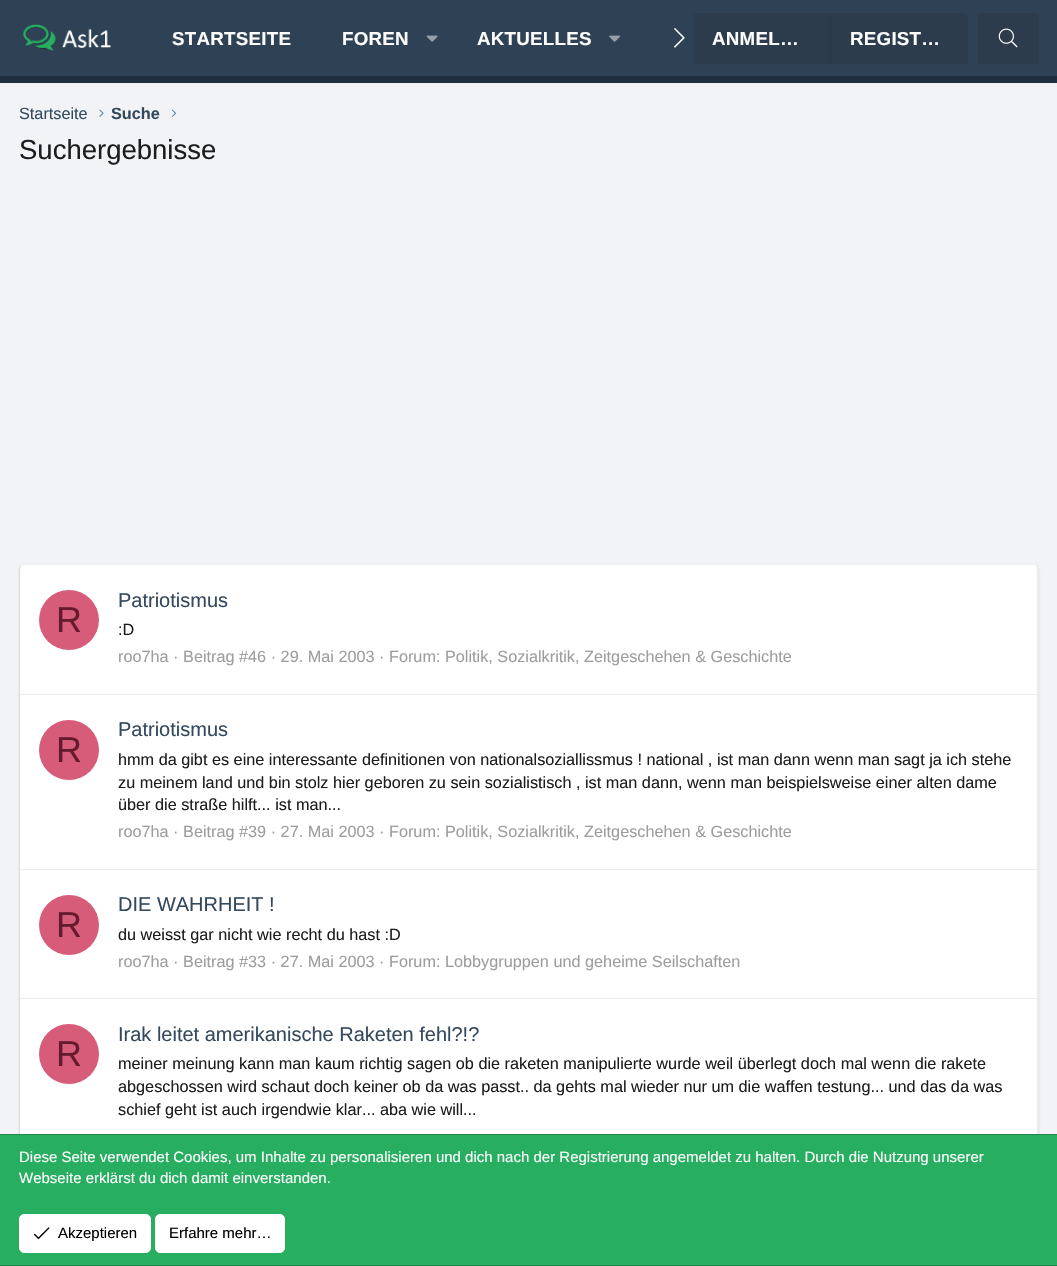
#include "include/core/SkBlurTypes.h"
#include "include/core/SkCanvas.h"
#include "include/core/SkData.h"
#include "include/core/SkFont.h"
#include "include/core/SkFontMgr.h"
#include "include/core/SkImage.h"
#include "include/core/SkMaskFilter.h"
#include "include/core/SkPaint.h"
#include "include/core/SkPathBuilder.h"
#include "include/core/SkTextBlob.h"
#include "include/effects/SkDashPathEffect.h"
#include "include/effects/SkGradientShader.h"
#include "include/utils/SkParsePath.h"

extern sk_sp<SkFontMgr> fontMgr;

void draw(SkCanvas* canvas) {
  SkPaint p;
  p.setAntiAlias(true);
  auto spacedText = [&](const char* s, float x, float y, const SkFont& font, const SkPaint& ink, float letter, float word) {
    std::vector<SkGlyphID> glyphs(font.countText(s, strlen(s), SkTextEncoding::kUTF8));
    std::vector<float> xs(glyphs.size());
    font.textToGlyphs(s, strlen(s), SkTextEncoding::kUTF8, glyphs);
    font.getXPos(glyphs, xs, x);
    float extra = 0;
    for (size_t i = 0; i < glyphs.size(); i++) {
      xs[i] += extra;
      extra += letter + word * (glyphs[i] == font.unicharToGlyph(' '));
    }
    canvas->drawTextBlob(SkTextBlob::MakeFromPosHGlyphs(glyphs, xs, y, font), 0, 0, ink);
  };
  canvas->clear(SkColorSetRGB(241, 243, 246));
  p.setColor(SkColorSetRGB(47, 66, 85));
  canvas->drawRect(SkRect::MakeLTRB(0, 0, 1057, 76), p);
  p.setColor(SkColorSetRGB(32, 46, 61));
  canvas->drawRect(SkRect::MakeLTRB(0, 76, 1057, 83), p);
  canvas->drawImageRect(SkImages::DeferredFromEncodedData(SkData::MakeFromFileName("images/1.png")), SkRect::MakeLTRB(23, 24, 111, 51), SkSamplingOptions());
  canvas->drawImageRect(SkImages::DeferredFromEncodedData(SkData::MakeFromFileName("images/2.png")), SkRect::MakeLTRB(426, 35, 438, 42), SkSamplingOptions());
  canvas->drawImageRect(SkImages::DeferredFromEncodedData(SkData::MakeFromFileName("images/3.png")), SkRect::MakeLTRB(609, 35, 620, 42), SkSamplingOptions());
  canvas->drawImageRect(SkImages::DeferredFromEncodedData(SkData::MakeFromFileName("images/4.png")), SkRect::MakeLTRB(674, 28, 685, 48), SkSamplingOptions());
  p.setColor(SkColorSetRGB(44, 60, 77));
  canvas->drawPath(SkPathBuilder().moveTo(698, 13).lineTo(963, 13).cubicTo(966, 13, 968, 15, 968, 18).lineTo(968, 64).lineTo(693, 64).lineTo(693, 18).cubicTo(693, 15, 695, 13, 698, 13).close().detach(), p);
  p.setColor(SkColorSetRGB(42, 55, 70));
  canvas->drawRect(SkRect::MakeLTRB(830, 13, 831, 64), p);
  p.setColor(SkColorSetRGB(44, 60, 77));
  canvas->drawPath(SkPathBuilder().moveTo(983, 13).lineTo(1034, 13).cubicTo(1037, 13, 1039, 15, 1039, 18).lineTo(1039, 64).lineTo(978, 64).lineTo(978, 18).cubicTo(978, 15, 980, 13, 983, 13).close().detach(), p);
  canvas->drawImageRect(SkImages::DeferredFromEncodedData(SkData::MakeFromFileName("images/5.png")), SkRect::MakeLTRB(998, 28, 1018, 48), SkSamplingOptions());
  canvas->drawImageRect(SkImages::DeferredFromEncodedData(SkData::MakeFromFileName("images/6.png")), SkRect::MakeLTRB(99, 109, 104, 117), SkSamplingOptions());
  canvas->drawImageRect(SkImages::DeferredFromEncodedData(SkData::MakeFromFileName("images/7.png")), SkRect::MakeLTRB(171, 109, 177, 117), SkSamplingOptions());
  p.setColor(SkColorSetARGB(26, 0, 0, 0));
  p.setMaskFilter(SkMaskFilter::MakeBlur(kNormal_SkBlurStyle, 1));
  canvas->drawRoundRect(SkRect::MakeLTRB(19, 565, 1039, 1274), 5, 5, p);
  p.setMaskFilter(nullptr);
  p.setColor(SK_ColorWHITE);
  canvas->drawRoundRect(SkRect::MakeLTRB(19, 564, 1039, 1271), 5, 5, p);
  p.setStyle(SkPaint::kStroke_Style);
  p.setStrokeWidth(1.2f);
  p.setColor(SkColorSetRGB(238, 238, 238));
  canvas->drawPath(SkPathBuilder().moveTo(20.5f, 565.5f).lineTo(24, 564.5f).lineTo(1034, 564.5f).lineTo(1037, 565.5f).detach(), p);
  p.setColor(SkColorSetRGB(223, 223, 223));
  canvas->drawPath(SkPathBuilder().moveTo(1037, 565.5f).lineTo(1038, 569).lineTo(1038, 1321).lineTo(1037, 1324.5f).detach(), p);
  canvas->drawPath(SkPathBuilder().moveTo(20.5f, 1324.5f).lineTo(19.5f, 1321).lineTo(19.5f, 569).lineTo(20.5f, 565.5f).detach(), p);
  p.setStyle(SkPaint::kFill_Style);
  p.setColor(SkColorSetRGB(214, 92, 122));
  canvas->drawCircle(69, 620, 30, p);
  p.setColor(SkColorSetRGB(238, 238, 238));
  canvas->drawRect(SkRect::MakeLTRB(20, 694, 1038, 695), p);
  p.setColor(SkColorSetRGB(214, 92, 122));
  canvas->drawCircle(69, 750, 30, p);
  p.setColor(SkColorSetRGB(238, 238, 238));
  canvas->drawRect(SkRect::MakeLTRB(20, 869, 1038, 870), p);
  p.setColor(SkColorSetRGB(214, 92, 122));
  canvas->drawCircle(69, 925, 30, p);
  p.setColor(SkColorSetRGB(238, 238, 238));
  canvas->drawRect(SkRect::MakeLTRB(20, 998, 1038, 999), p);
  p.setColor(SkColorSetRGB(214, 92, 122));
  canvas->drawCircle(69, 1054, 30, p);
  p.setColor(SkColorSetRGB(39, 174, 96));
  canvas->drawRect(SkRect::MakeLTRB(0, 1135, 1057, 1265), p);
  p.setColor(SkColorSetRGB(30, 132, 73));
  canvas->drawRect(SkRect::MakeLTRB(0, 1134, 1057, 1135), p);
  canvas->drawRect(SkRect::MakeLTRB(0, 1265, 1057, 1266), p);
  p.setColor(SK_ColorWHITE);
  canvas->drawRoundRect(SkRect::MakeLTRB(19.5f, 1214.5f, 150.5f, 1252.5f), 4.5f, 4.5f, p);
  p.setStyle(SkPaint::kStroke_Style);
  p.setStrokeWidth(1);
  canvas->drawRoundRect(SkRect::MakeLTRB(19.5f, 1214.5f, 150.5f, 1252.5f), 4.5f, 4.5f, p);
  canvas->drawImageRect(SkImages::DeferredFromEncodedData(SkData::MakeFromFileName("images/8.png")), SkRect::MakeLTRB(33, 1227, 50, 1240), SkSamplingOptions());
  p.setStyle(SkPaint::kFill_Style);
  canvas->drawRoundRect(SkRect::MakeLTRB(155.5f, 1214.5f, 284.5f, 1252.5f), 4.5f, 4.5f, p);
  p.setStyle(SkPaint::kStroke_Style);
  canvas->drawRoundRect(SkRect::MakeLTRB(155.5f, 1214.5f, 284.5f, 1252.5f), 4.5f, 4.5f, p);
  SkFont font1(fontMgr->matchFamilyStyle("Liberation Sans", SkFontStyle::Bold()), 18.75f);
  font1.setSubpixel(true);
  p.setStyle(SkPaint::kFill_Style);
  p.setColor(SkColorSetRGB(252, 252, 252));
  spacedText("STARTSEITE", 172, 45, font1, p, 0.25f, 0);
  spacedText("FOREN", 342, 45, font1, p, 0.25f, 0);
  spacedText("AKTUELLES", 477, 45, font1, p, 0.25f, 0);
  spacedText("ANMEL…", 712, 45, font1, p, 0.25f, 0);
  spacedText("REGIST…", 850, 45, font1, p, 0.25f, 0);
  SkFont font2(fontMgr->matchFamilyStyle("Liberation Sans", SkFontStyle::Normal()), 16.25f);
  font2.setSubpixel(true);
  p.setColor(SkColorSetRGB(52, 73, 94));
  canvas->drawString("Startseite", 19, 119, font2, p);
  SkFont font3(fontMgr->matchFamilyStyle("Liberation Sans", SkFontStyle::Bold()), 16.25f);
  font3.setSubpixel(true);
  canvas->drawString("Suche", 111, 119, font3, p);
  SkFont font4(fontMgr->matchFamilyStyle("Liberation Sans", SkFontStyle::Normal()), 27.5f);
  font4.setSubpixel(true);
  p.setColor(SkColorSetRGB(29, 29, 29));
  canvas->drawString("Suchergebnisse", 19, 159, font4, p);
  SkFont font5(fontMgr->matchFamilyStyle("Liberation Sans", SkFontStyle::Normal()), 36);
  font5.setSubpixel(true);
  p.setColor(SkColorSetRGB(102, 26, 45));
  canvas->drawString("R", 56, 632, font5, p);
  SkFont font6(fontMgr->matchFamilyStyle("Liberation Sans", SkFontStyle::Normal()), 20);
  font6.setSubpixel(true);
  p.setColor(SkColorSetRGB(52, 73, 94));
  canvas->drawString("Patriotismus", 118, 607, font6, p);
  p.setColor(SkColorSetRGB(29, 29, 29));
  canvas->drawString(":D", 118, 635, font2, p);
  p.setColor(SkColorSetRGB(157, 157, 157));
  canvas->drawString("roo7ha · Beitrag #46 · 29. Mai 2003 · Forum: Politik, Sozialkritik, Zeitgeschehen & Geschichte", 118, 662, font2, p);
  p.setColor(SkColorSetRGB(102, 26, 45));
  canvas->drawString("R", 56, 762, font5, p);
  p.setColor(SkColorSetRGB(52, 73, 94));
  canvas->drawString("Patriotismus", 118, 736, font6, p);
  p.setColor(SkColorSetRGB(29, 29, 29));
  canvas->drawString("hmm da gibt es eine interessante definitionen von nationalsoziallissmus ! national , ist man dann wenn man sagt ja ich stehe", 118, 765, font2, p);
  canvas->drawString("zu meinem land und bin stolz hier geboren zu sein sozialistisch , ist man dann, wenn man beispielsweise einer alten dame", 118, 788, font2, p);
  canvas->drawString("über die straße hilft... ist man...", 118, 810, font2, p);
  p.setColor(SkColorSetRGB(157, 157, 157));
  canvas->drawString("roo7ha · Beitrag #39 · 27. Mai 2003 · Forum: Politik, Sozialkritik, Zeitgeschehen & Geschichte", 118, 837, font2, p);
  p.setColor(SkColorSetRGB(102, 26, 45));
  canvas->drawString("R", 56, 937, font5, p);
  p.setColor(SkColorSetRGB(52, 73, 94));
  canvas->drawString("DIE WAHRHEIT !", 118, 911, font6, p);
  p.setColor(SkColorSetRGB(29, 29, 29));
  canvas->drawString("du weisst gar nicht wie recht du hast :D", 118, 940, font2, p);
  p.setColor(SkColorSetRGB(157, 157, 157));
  canvas->drawString("roo7ha · Beitrag #33 · 27. Mai 2003 · Forum: Lobbygruppen und geheime Seilschaften", 118, 967, font2, p);
  p.setColor(SkColorSetRGB(102, 26, 45));
  canvas->drawString("R", 56, 1066, font5, p);
  p.setColor(SkColorSetRGB(52, 73, 94));
  canvas->drawString("Irak leitet amerikanische Raketen fehl?!?", 118, 1041, font6, p);
  p.setColor(SkColorSetRGB(29, 29, 29));
  canvas->drawString("meiner meinung kann man kaum richtig sagen ob die raketen manipulierte wurde weil überlegt doch mal wenn die rakete", 118, 1069, font2, p);
  canvas->drawString("abgeschossen wird schaut doch keiner ob da was passt.. da gehts mal wieder nur um die waffen testung... und das da was", 118, 1092, font2, p);
  canvas->drawString("schief geht ist auch irgendwie klar... aba wie will...", 118, 1115, font2, p);
  SkFont font7(fontMgr->matchFamilyStyle("Liberation Sans", SkFontStyle::Normal()), 15);
  font7.setSubpixel(true);
  p.setColor(SkColorSetRGB(252, 252, 252));
  canvas->drawString("Diese Seite verwendet Cookies, um Inhalte zu personalisieren und dich nach der Registrierung angemeldet zu halten. Durch die Nutzung unserer", 19, 1162, font7, p);
  canvas->drawString("Webseite erklärst du dich damit einverstanden.", 19, 1183, font7, p);
  p.setColor(SK_ColorBLACK);
  canvas->drawString("Akzeptieren", 58, 1238, font7, p);
  canvas->drawString("Erfahre mehr…", 169, 1238, font7, p);
}
